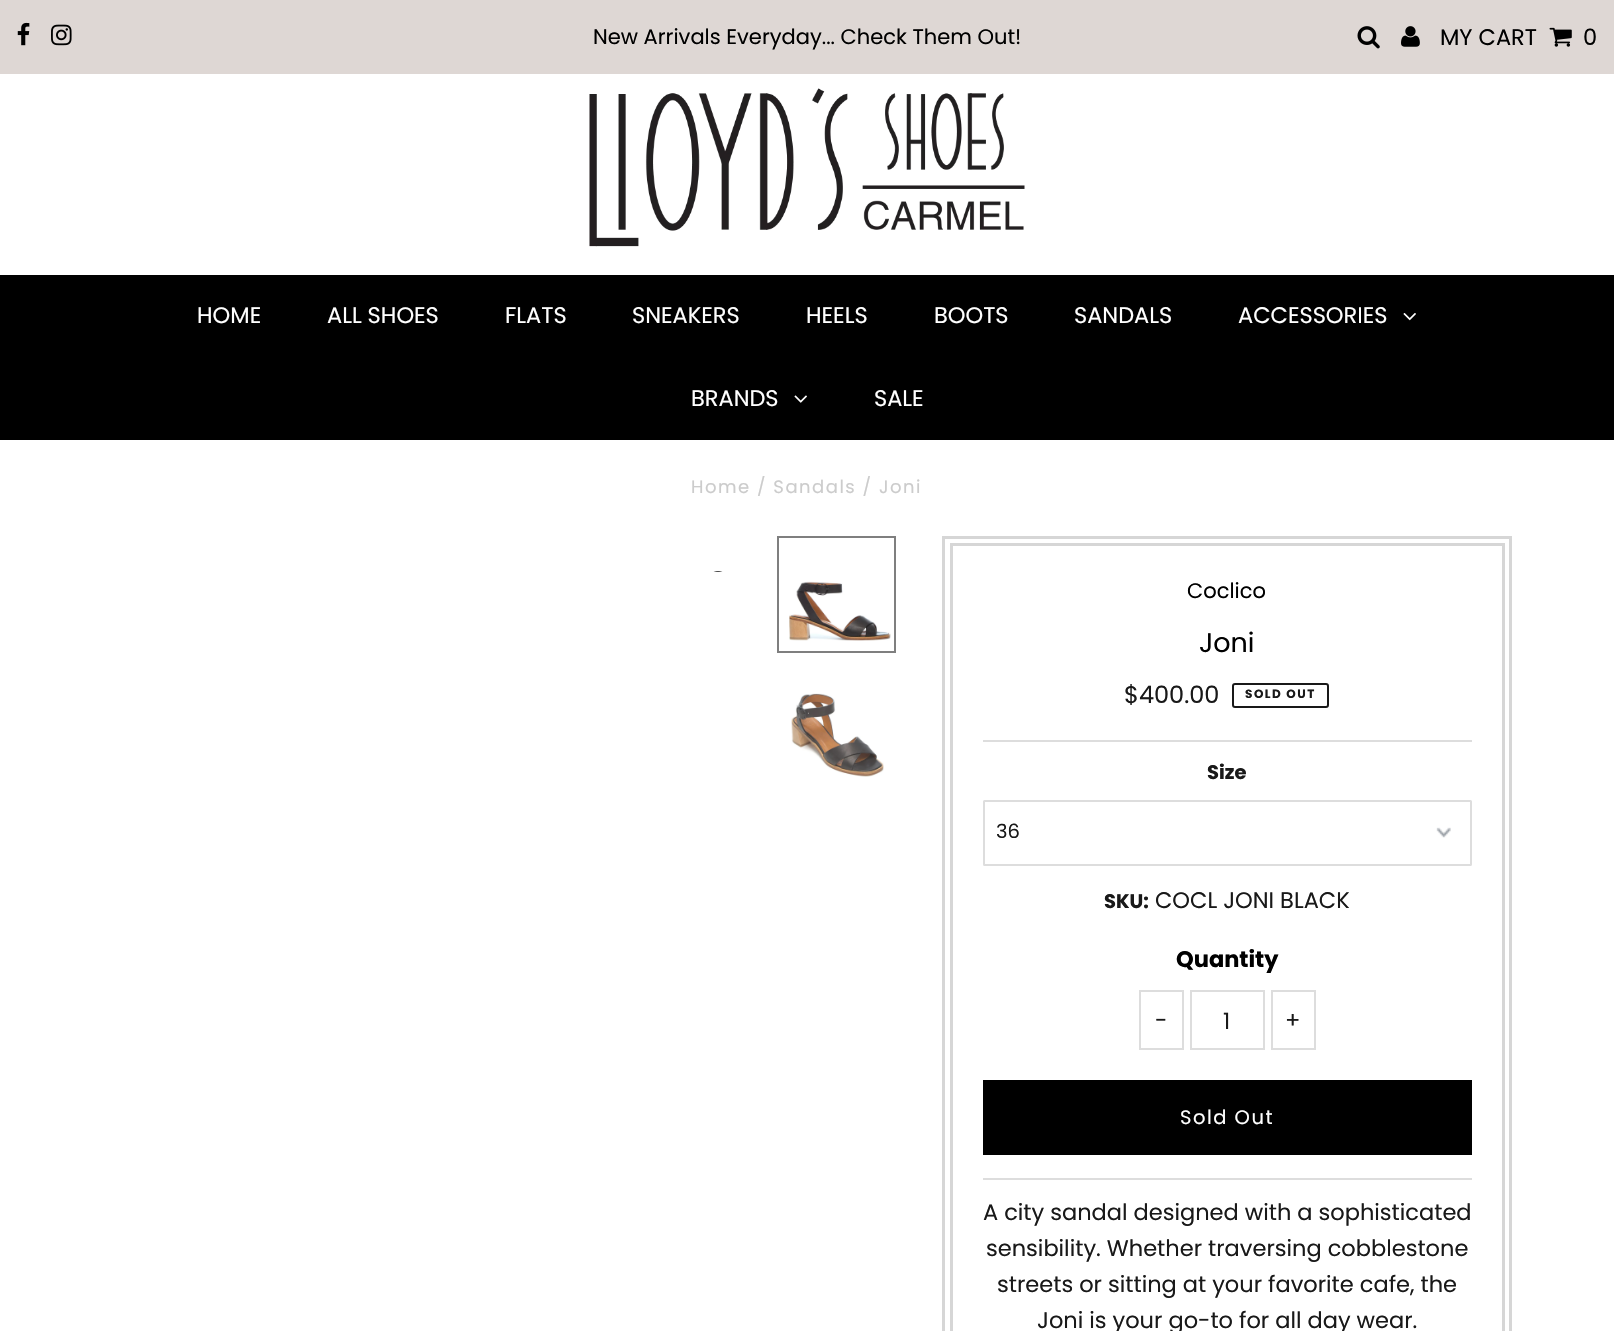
#include "include/core/SkBlurTypes.h"
#include "include/core/SkCanvas.h"
#include "include/core/SkData.h"
#include "include/core/SkFont.h"
#include "include/core/SkFontMgr.h"
#include "include/core/SkImage.h"
#include "include/core/SkMaskFilter.h"
#include "include/core/SkPaint.h"
#include "include/core/SkPathBuilder.h"
#include "include/core/SkTextBlob.h"
#include "include/effects/SkDashPathEffect.h"
#include "include/effects/SkGradientShader.h"
#include "include/utils/SkParsePath.h"

extern sk_sp<SkFontMgr> fontMgr;

void draw(SkCanvas* canvas) {
  SkPaint p;
  p.setAntiAlias(true);
  auto spacedText = [&](const char* s, float x, float y, const SkFont& font, const SkPaint& ink, float letter, float word) {
    std::vector<SkGlyphID> glyphs(font.countText(s, strlen(s), SkTextEncoding::kUTF8));
    std::vector<float> xs(glyphs.size());
    font.textToGlyphs(s, strlen(s), SkTextEncoding::kUTF8, glyphs);
    font.getXPos(glyphs, xs, x);
    float extra = 0;
    for (size_t i = 0; i < glyphs.size(); i++) {
      xs[i] += extra;
      extra += letter + word * (glyphs[i] == font.unicharToGlyph(' '));
    }
    canvas->drawTextBlob(SkTextBlob::MakeFromPosHGlyphs(glyphs, xs, y, font), 0, 0, ink);
  };
  canvas->clear(SK_ColorWHITE);
  p.setColor(SkColorSetRGB(222, 215, 212));
  canvas->drawRect(SkRect::MakeLTRB(0, 0, 1614, 74), p);
  canvas->drawImageRect(SkImages::DeferredFromEncodedData(SkData::MakeFromFileName("images/1.png")), SkRect::MakeLTRB(17, 22, 30, 46), SkSamplingOptions());
  canvas->drawImageRect(SkImages::DeferredFromEncodedData(SkData::MakeFromFileName("images/2.png")), SkRect::MakeLTRB(51, 24, 72, 46), SkSamplingOptions());
  canvas->drawImageRect(SkImages::DeferredFromEncodedData(SkData::MakeFromFileName("images/3.png")), SkRect::MakeLTRB(1357, 26, 1380, 49), SkSamplingOptions());
  canvas->drawImageRect(SkImages::DeferredFromEncodedData(SkData::MakeFromFileName("images/4.png")), SkRect::MakeLTRB(1401, 26, 1420, 47), SkSamplingOptions());
  canvas->drawImageRect(SkImages::DeferredFromEncodedData(SkData::MakeFromFileName("images/5.png")), SkRect::MakeLTRB(1549, 27, 1572, 47), SkSamplingOptions());
  canvas->drawImageRect(SkImages::DeferredFromEncodedData(SkData::MakeFromFileName("images/6.png")), SkRect::MakeLTRB(589, 88, 1025, 247), SkSamplingOptions());
  p.setColor(SK_ColorBLACK);
  canvas->drawRect(SkRect::MakeLTRB(0, 275, 1614, 440), p);
  canvas->drawImageRect(SkImages::DeferredFromEncodedData(SkData::MakeFromFileName("images/7.png")), SkRect::MakeLTRB(1403, 313, 1416, 321), SkSamplingOptions());
  canvas->drawImageRect(SkImages::DeferredFromEncodedData(SkData::MakeFromFileName("images/8.png")), SkRect::MakeLTRB(794, 395, 807, 403), SkSamplingOptions());
  canvas->drawImageRect(SkImages::DeferredFromEncodedData(SkData::MakeFromFileName("images/9.png")), SkRect::MakeLTRB(713, 571, 723, 572), SkSamplingOptions());
  canvas->drawImageRect(SkImages::DeferredFromEncodedData(SkData::MakeFromFileName("images/10.png")), SkRect::MakeLTRB(789, 581, 891, 641), SkSamplingOptions());
  p.setStyle(SkPaint::kStroke_Style);
  p.setStrokeWidth(2);
  p.setColor(SkColorSetRGB(127, 127, 127));
  canvas->drawRect(SkRect::MakeLTRB(778, 537, 895, 652), p);
  canvas->drawImageRect(SkImages::DeferredFromEncodedData(SkData::MakeFromFileName("images/11.png")), SkRect::MakeLTRB(791, 693, 884, 777), SkSamplingOptions());
  p.setStrokeWidth(3);
  p.setColor(SkColorSetRGB(214, 214, 214));
  canvas->drawRect(SkRect::MakeLTRB(943.5f, 537.5f, 1510.5f, 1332.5f), p);
  canvas->drawRect(SkRect::MakeLTRB(951.5f, 544.5f, 1503.5f, 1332.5f), p);
  p.setStyle(SkPaint::kFill_Style);
  p.setColor(SkColorSetRGB(221, 221, 221));
  canvas->drawRect(SkRect::MakeLTRB(983, 1178, 1472, 1180), p);
  canvas->drawRect(SkRect::MakeLTRB(983, 740, 1472, 742), p);
  p.setStyle(SkPaint::kStroke_Style);
  p.setStrokeWidth(2);
  p.setColor(SkColorSetRGB(25, 25, 25));
  canvas->drawRoundRect(SkRect::MakeLTRB(1233, 684, 1328, 707), 2, 2, p);
  canvas->drawImageRect(SkImages::DeferredFromEncodedData(SkData::MakeFromFileName("images/12.png")), SkRect::MakeLTRB(1436, 827, 1451, 838), SkSamplingOptions());
  p.setColor(SkColorSetRGB(221, 221, 221));
  canvas->drawRoundRect(SkRect::MakeLTRB(984, 801, 1471, 865), 0.5f, 0.5f, p);
  canvas->drawRect(SkRect::MakeLTRB(1140, 991, 1183, 1049), p);
  canvas->drawRect(SkRect::MakeLTRB(1191, 991, 1264, 1049), p);
  canvas->drawRect(SkRect::MakeLTRB(1272, 991, 1315, 1049), p);
  p.setStyle(SkPaint::kFill_Style);
  p.setColor(SK_ColorBLACK);
  canvas->drawRect(SkRect::MakeLTRB(983, 1080, 1472, 1155), p);
  SkFont font1(fontMgr->matchFamilyStyle("Poppins", SkFontStyle::Normal()), 21);
  font1.setSubpixel(true);
  canvas->drawString("New Arrivals Everyday... Check Them Out!", 593, 44, font1, p);
  SkFont font2(fontMgr->matchFamilyStyle("Poppins", SkFontStyle::Normal()), 22.5f);
  font2.setSubpixel(true);
  canvas->drawString("MY CART", 1440, 45, font2, p);
  canvas->drawString("0", 1583, 45, font2, p);
  p.setColor(SK_ColorWHITE);
  canvas->drawString("HOME", 197, 323, font2, p);
  canvas->drawString("ALL SHOES", 327, 323, font2, p);
  canvas->drawString("FLATS", 505, 323, font2, p);
  canvas->drawString("SNEAKERS", 632, 323, font2, p);
  canvas->drawString("HEELS", 806, 323, font2, p);
  canvas->drawString("BOOTS", 934, 323, font2, p);
  canvas->drawString("SANDALS", 1074, 323, font2, p);
  canvas->drawString("ACCESSORIES", 1238, 323, font2, p);
  canvas->drawString("BRANDS", 691, 406, font2, p);
  canvas->drawString("SALE", 874, 406, font2, p);
  SkFont font3(fontMgr->matchFamilyStyle("Poppins", SkFontStyle::Normal()), 18);
  font3.setSubpixel(true);
  p.setColor(SkColorSetRGB(204, 204, 204));
  spacedText("Home / Sandals / Joni", 691, 493, font3, p, 1.5f, 0);
  p.setColor(SK_ColorBLACK);
  canvas->drawString("Coclico", 1187, 598, font1, p);
  SkFont font4(fontMgr->matchFamilyStyle("Poppins", SkFontStyle::Normal()), 27);
  font4.setSubpixel(true);
  canvas->drawString("Joni", 1199, 652, font4, p);
  SkFont font5(fontMgr->matchFamilyStyle("Poppins", SkFontStyle::Normal()), 24);
  font5.setSubpixel(true);
  p.setColor(SkColorSetRGB(25, 25, 25));
  canvas->drawString("$400.00", 1124, 703, font5, p);
  SkFont font6(fontMgr->matchFamilyStyle("Poppins", SkFontStyle::Bold()), 12);
  font6.setSubpixel(true);
  spacedText("SOLD OUT", 1245, 698, font6, p, 1.5f, 0);
  SkFont font7(fontMgr->matchFamilyStyle("Poppins", SkFontStyle::Bold()), 19.5f);
  font7.setSubpixel(true);
  canvas->drawString("Size", 1207, 779, font7, p);
  SkFont font8(fontMgr->matchFamilyStyle("Poppins", SkFontStyle::Normal()), 19.5f);
  font8.setSubpixel(true);
  canvas->drawString("36", 996, 838, font8, p);
  canvas->drawString("SKU:", 1104, 908, font7, p);
  canvas->drawString("COCL JONI BLACK", 1155, 908, font2, p);
  SkFont font9(fontMgr->matchFamilyStyle("Poppins", SkFontStyle::Bold()), 22.5f);
  font9.setSubpixel(true);
  p.setColor(SK_ColorBLACK);
  canvas->drawString("Quantity", 1176, 967, font9, p);
  p.setColor(SkColorSetRGB(25, 25, 25));
  canvas->drawString("-", 1155, 1028, font2, p);
  canvas->drawString("1", 1223, 1029, font2, p);
  canvas->drawString("+", 1285, 1028, font2, p);
  p.setColor(SK_ColorWHITE);
  spacedText("Sold Out", 1180, 1124, font8, p, 1.5f, 0);
  p.setColor(SkColorSetRGB(25, 25, 25));
  canvas->drawString("A city sandal designed with a sophisticated", 983, 1220, font2, p);
  canvas->drawString("sensibility. Whether traversing cobblestone", 986, 1256, font2, p);
  canvas->drawString("streets or sitting at your favorite cafe, the", 997, 1292, font2, p);
  canvas->drawString("Joni is your go-to for all day wear.", 1037, 1328, font2, p);
}
